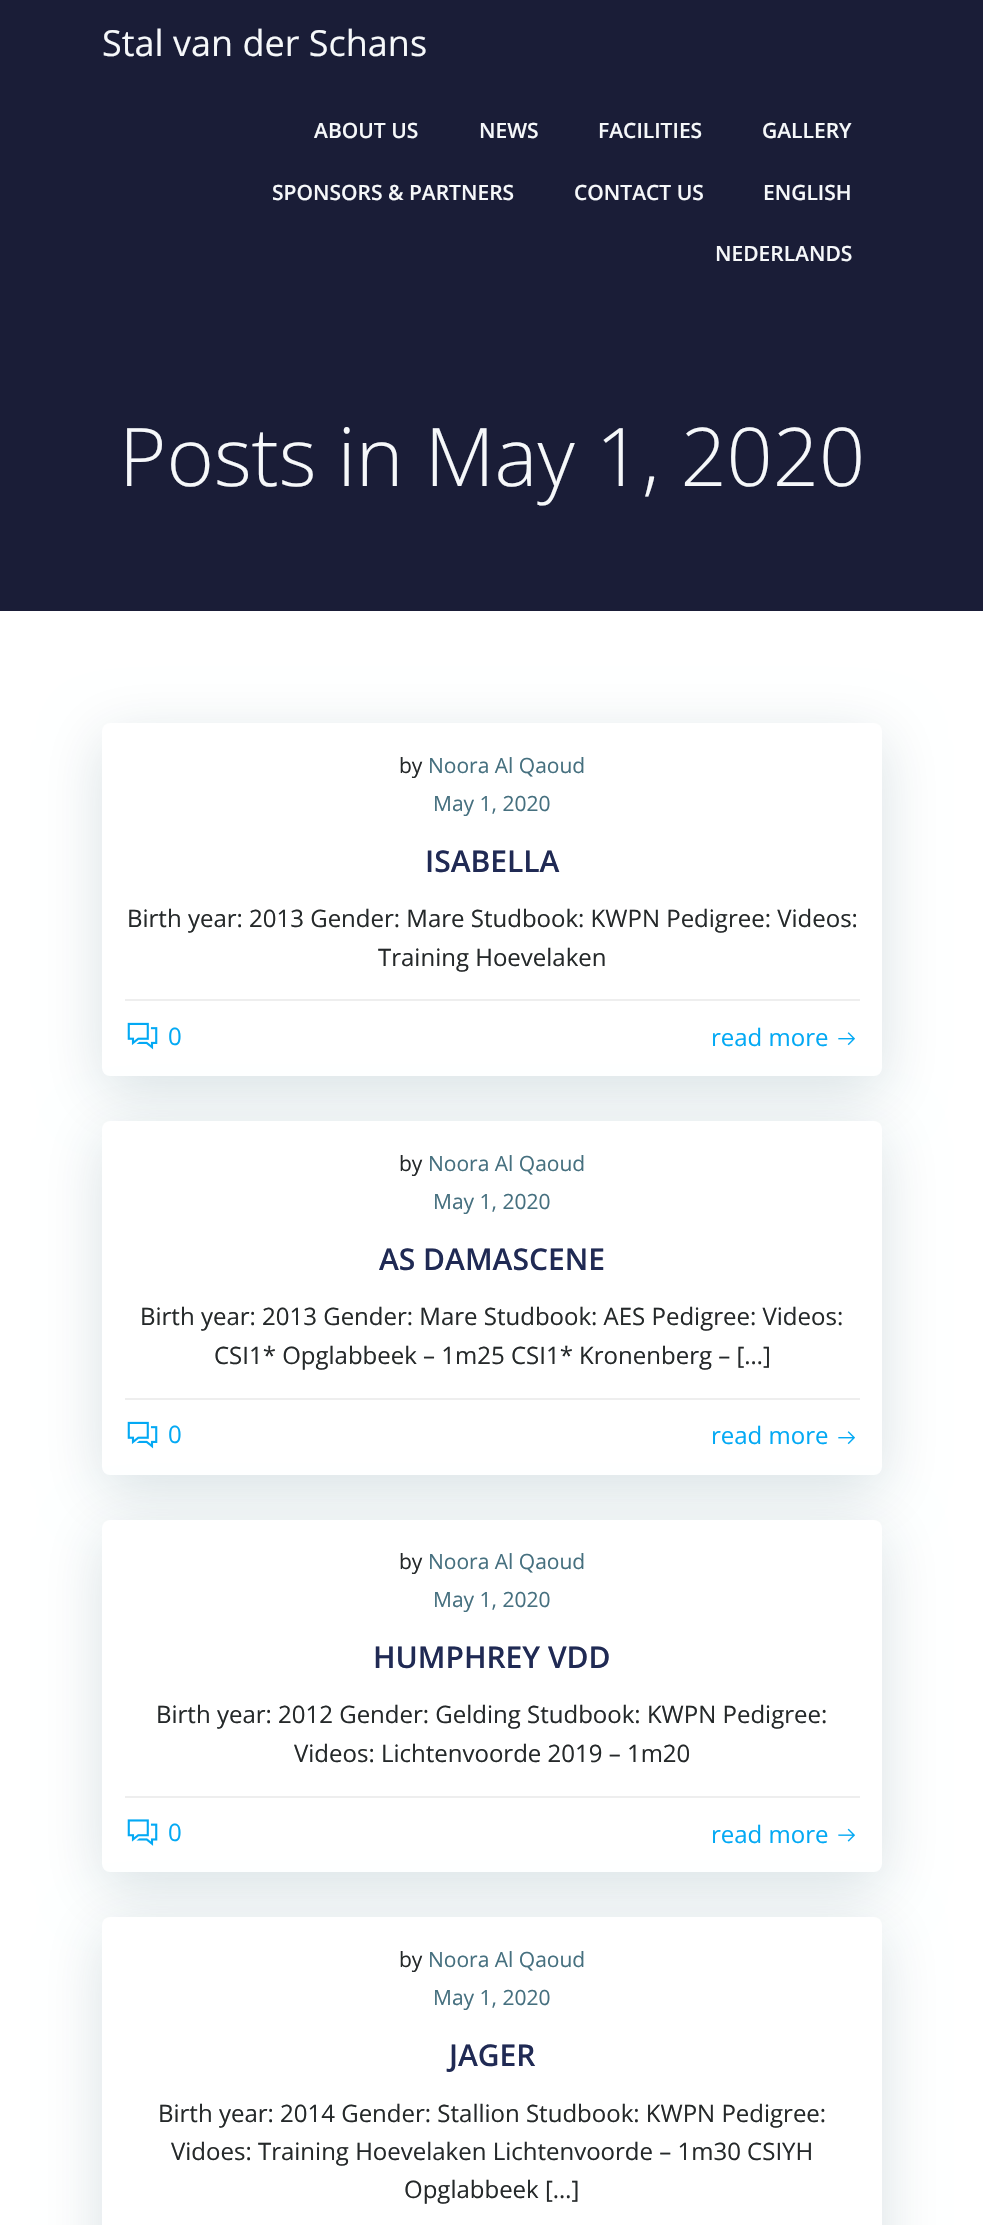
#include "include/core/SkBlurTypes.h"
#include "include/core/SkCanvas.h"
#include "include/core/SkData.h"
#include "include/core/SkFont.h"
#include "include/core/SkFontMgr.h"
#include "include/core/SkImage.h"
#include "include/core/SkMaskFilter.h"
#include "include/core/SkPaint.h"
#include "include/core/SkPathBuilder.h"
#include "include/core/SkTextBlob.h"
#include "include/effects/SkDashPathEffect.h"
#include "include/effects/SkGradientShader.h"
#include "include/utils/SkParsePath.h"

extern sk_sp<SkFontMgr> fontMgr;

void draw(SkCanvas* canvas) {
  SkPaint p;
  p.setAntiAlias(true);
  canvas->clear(SK_ColorWHITE);
  p.setColor(SkColorSetRGB(26, 29, 55));
  canvas->drawRect(SkRect::MakeLTRB(0, 0, 983, 611), p);
  p.setColor(SkColorSetARGB(38, 1, 51, 74));
  p.setMaskFilter(SkMaskFilter::MakeBlur(kNormal_SkBlurStyle, 30));
  canvas->drawRoundRect(SkRect::MakeLTRB(102, 738, 882, 1091), 8, 8, p);
  p.setMaskFilter(nullptr);
  p.setColor(SK_ColorWHITE);
  canvas->drawRoundRect(SkRect::MakeLTRB(102, 723, 882, 1076), 8, 8, p);
  p.setColor(SkColorSetRGB(238, 238, 238));
  canvas->drawRect(SkRect::MakeLTRB(125, 999, 860, 1001), p);
  canvas->drawImageRect(SkImages::DeferredFromEncodedData(SkData::MakeFromFileName("images/1.png")), SkRect::MakeLTRB(127, 1022, 158, 1050), SkSamplingOptions());
  canvas->drawImageRect(SkImages::DeferredFromEncodedData(SkData::MakeFromFileName("images/2.png")), SkRect::MakeLTRB(838, 1032, 855, 1046), SkSamplingOptions());
  p.setColor(SkColorSetARGB(38, 1, 51, 74));
  p.setMaskFilter(SkMaskFilter::MakeBlur(kNormal_SkBlurStyle, 30));
  canvas->drawRoundRect(SkRect::MakeLTRB(102, 1136, 882, 1490), 8, 8, p);
  p.setMaskFilter(nullptr);
  p.setColor(SK_ColorWHITE);
  canvas->drawRoundRect(SkRect::MakeLTRB(102, 1121, 882, 1475), 8, 8, p);
  p.setColor(SkColorSetRGB(238, 238, 238));
  canvas->drawRect(SkRect::MakeLTRB(125, 1398, 860, 1400), p);
  canvas->drawImageRect(SkImages::DeferredFromEncodedData(SkData::MakeFromFileName("images/1.png")), SkRect::MakeLTRB(127, 1421, 158, 1449), SkSamplingOptions());
  canvas->drawImageRect(SkImages::DeferredFromEncodedData(SkData::MakeFromFileName("images/2.png")), SkRect::MakeLTRB(838, 1431, 855, 1445), SkSamplingOptions());
  p.setColor(SkColorSetARGB(38, 1, 51, 74));
  p.setMaskFilter(SkMaskFilter::MakeBlur(kNormal_SkBlurStyle, 30));
  canvas->drawRoundRect(SkRect::MakeLTRB(102, 1535, 882, 1887), 8, 8, p);
  p.setMaskFilter(nullptr);
  p.setColor(SK_ColorWHITE);
  canvas->drawRoundRect(SkRect::MakeLTRB(102, 1520, 882, 1872), 8, 8, p);
  p.setColor(SkColorSetRGB(238, 238, 238));
  canvas->drawRect(SkRect::MakeLTRB(125, 1796, 860, 1798), p);
  canvas->drawImageRect(SkImages::DeferredFromEncodedData(SkData::MakeFromFileName("images/3.png")), SkRect::MakeLTRB(127, 1819, 158, 1846), SkSamplingOptions());
  canvas->drawImageRect(SkImages::DeferredFromEncodedData(SkData::MakeFromFileName("images/4.png")), SkRect::MakeLTRB(838, 1828, 855, 1842), SkSamplingOptions());
  p.setColor(SkColorSetARGB(38, 1, 51, 74));
  p.setMaskFilter(SkMaskFilter::MakeBlur(kNormal_SkBlurStyle, 30));
  canvas->drawRoundRect(SkRect::MakeLTRB(102, 1932, 882, 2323), 8, 8, p);
  p.setMaskFilter(nullptr);
  p.setColor(SK_ColorWHITE);
  canvas->drawRoundRect(SkRect::MakeLTRB(102, 1917, 882, 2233), 8, 8, p);
  SkFont font1(fontMgr->matchFamilyStyle("Open Sans", SkFontStyle::Normal()), 36);
  font1.setSubpixel(true);
  p.setColor(SkColorSetRGB(246, 248, 250));
  canvas->drawString("Stal van der Schans", 102, 56, font1, p);
  SkFont font2(fontMgr->matchFamilyStyle("Open Sans", SkFontStyle(600, SkFontStyle::kNormal_Width, SkFontStyle::kUpright_Slant)), 21);
  font2.setSubpixel(true);
  canvas->drawString("ABOUT US", 314, 138, font2, p);
  canvas->drawString("NEWS", 479, 138, font2, p);
  canvas->drawString("FACILITIES", 598, 138, font2, p);
  canvas->drawString("GALLERY", 762, 138, font2, p);
  canvas->drawString("SPONSORS & PARTNERS", 272, 200, font2, p);
  canvas->drawString("CONTACT US", 574, 200, font2, p);
  canvas->drawString("ENGLISH", 763, 200, font2, p);
  canvas->drawString("NEDERLANDS", 715, 261, font2, p);
  SkFont font3(fontMgr->matchFamilyStyle("Open Sans", SkFontStyle(300, SkFontStyle::kNormal_Width, SkFontStyle::kUpright_Slant)), 81);
  font3.setSubpixel(true);
  canvas->drawString("Posts in May 1, 2020", 119, 486, font3, p);
  SkFont font4(fontMgr->matchFamilyStyle("Open Sans", SkFontStyle::Normal()), 21);
  font4.setSubpixel(true);
  p.setColor(SkColorSetRGB(37, 41, 42));
  canvas->drawString("by", 399, 773, font4, p);
  p.setColor(SkColorSetRGB(70, 112, 127));
  canvas->drawString("Noora Al Qaoud", 428, 773, font4, p);
  canvas->drawString("May 1, 2020", 433, 811, font4, p);
  SkFont font5(fontMgr->matchFamilyStyle("Open Sans", SkFontStyle(600, SkFontStyle::kNormal_Width, SkFontStyle::kUpright_Slant)), 30);
  font5.setSubpixel(true);
  p.setColor(SkColorSetRGB(32, 42, 84));
  canvas->drawString("ISABELLA", 425, 872, font5, p);
  SkFont font6(fontMgr->matchFamilyStyle("Open Sans", SkFontStyle::Normal()), 24);
  font6.setSubpixel(true);
  p.setColor(SkColorSetRGB(37, 41, 42));
  canvas->drawString("Birth year: 2013 Gender: Mare Studbook: KWPN Pedigree: Videos:", 127, 927, font6, p);
  canvas->drawString("Training Hoevelaken", 378, 966, font6, p);
  p.setColor(SkColorSetRGB(3, 169, 244));
  canvas->drawString("0", 168, 1045, font6, p);
  canvas->drawString("read more", 711, 1046, font6, p);
  p.setColor(SkColorSetRGB(37, 41, 42));
  canvas->drawString("by", 399, 1171, font4, p);
  p.setColor(SkColorSetRGB(70, 112, 127));
  canvas->drawString("Noora Al Qaoud", 428, 1171, font4, p);
  canvas->drawString("May 1, 2020", 433, 1209, font4, p);
  p.setColor(SkColorSetRGB(32, 42, 84));
  canvas->drawString("AS DAMASCENE", 379, 1270, font5, p);
  p.setColor(SkColorSetRGB(37, 41, 42));
  canvas->drawString("Birth year: 2013 Gender: Mare Studbook: AES Pedigree: Videos:", 140, 1325, font6, p);
  canvas->drawString("CSI1* Opglabbeek – 1m25 CSI1* Kronenberg – […]", 214, 1364, font6, p);
  p.setColor(SkColorSetRGB(3, 169, 244));
  canvas->drawString("0", 168, 1443, font6, p);
  canvas->drawString("read more", 711, 1444, font6, p);
  p.setColor(SkColorSetRGB(37, 41, 42));
  canvas->drawString("by", 399, 1569, font4, p);
  p.setColor(SkColorSetRGB(70, 112, 127));
  canvas->drawString("Noora Al Qaoud", 428, 1569, font4, p);
  canvas->drawString("May 1, 2020", 433, 1607, font4, p);
  p.setColor(SkColorSetRGB(32, 42, 84));
  canvas->drawString("HUMPHREY VDD", 373, 1668, font5, p);
  p.setColor(SkColorSetRGB(37, 41, 42));
  canvas->drawString("Birth year: 2012 Gender: Gelding Studbook: KWPN Pedigree:", 156, 1723, font6, p);
  canvas->drawString("Videos: Lichtenvoorde 2019 – 1m20", 294, 1762, font6, p);
  p.setColor(SkColorSetRGB(3, 169, 244));
  canvas->drawString("0", 168, 1841, font6, p);
  canvas->drawString("read more", 711, 1843, font6, p);
  p.setColor(SkColorSetRGB(37, 41, 42));
  canvas->drawString("by", 399, 1967, font4, p);
  p.setColor(SkColorSetRGB(70, 112, 127));
  canvas->drawString("Noora Al Qaoud", 428, 1967, font4, p);
  canvas->drawString("May 1, 2020", 433, 2005, font4, p);
  p.setColor(SkColorSetRGB(32, 42, 84));
  canvas->drawString("JAGER", 449, 2066, font5, p);
  p.setColor(SkColorSetRGB(37, 41, 42));
  canvas->drawString("Birth year: 2014 Gender: Stallion Studbook: KWPN Pedigree:", 158, 2122, font6, p);
  canvas->drawString("Vidoes: Training Hoevelaken Lichtenvoorde – 1m30 CSIYH", 171, 2160, font6, p);
  canvas->drawString("Opglabbeek […]", 404, 2198, font6, p);
}
